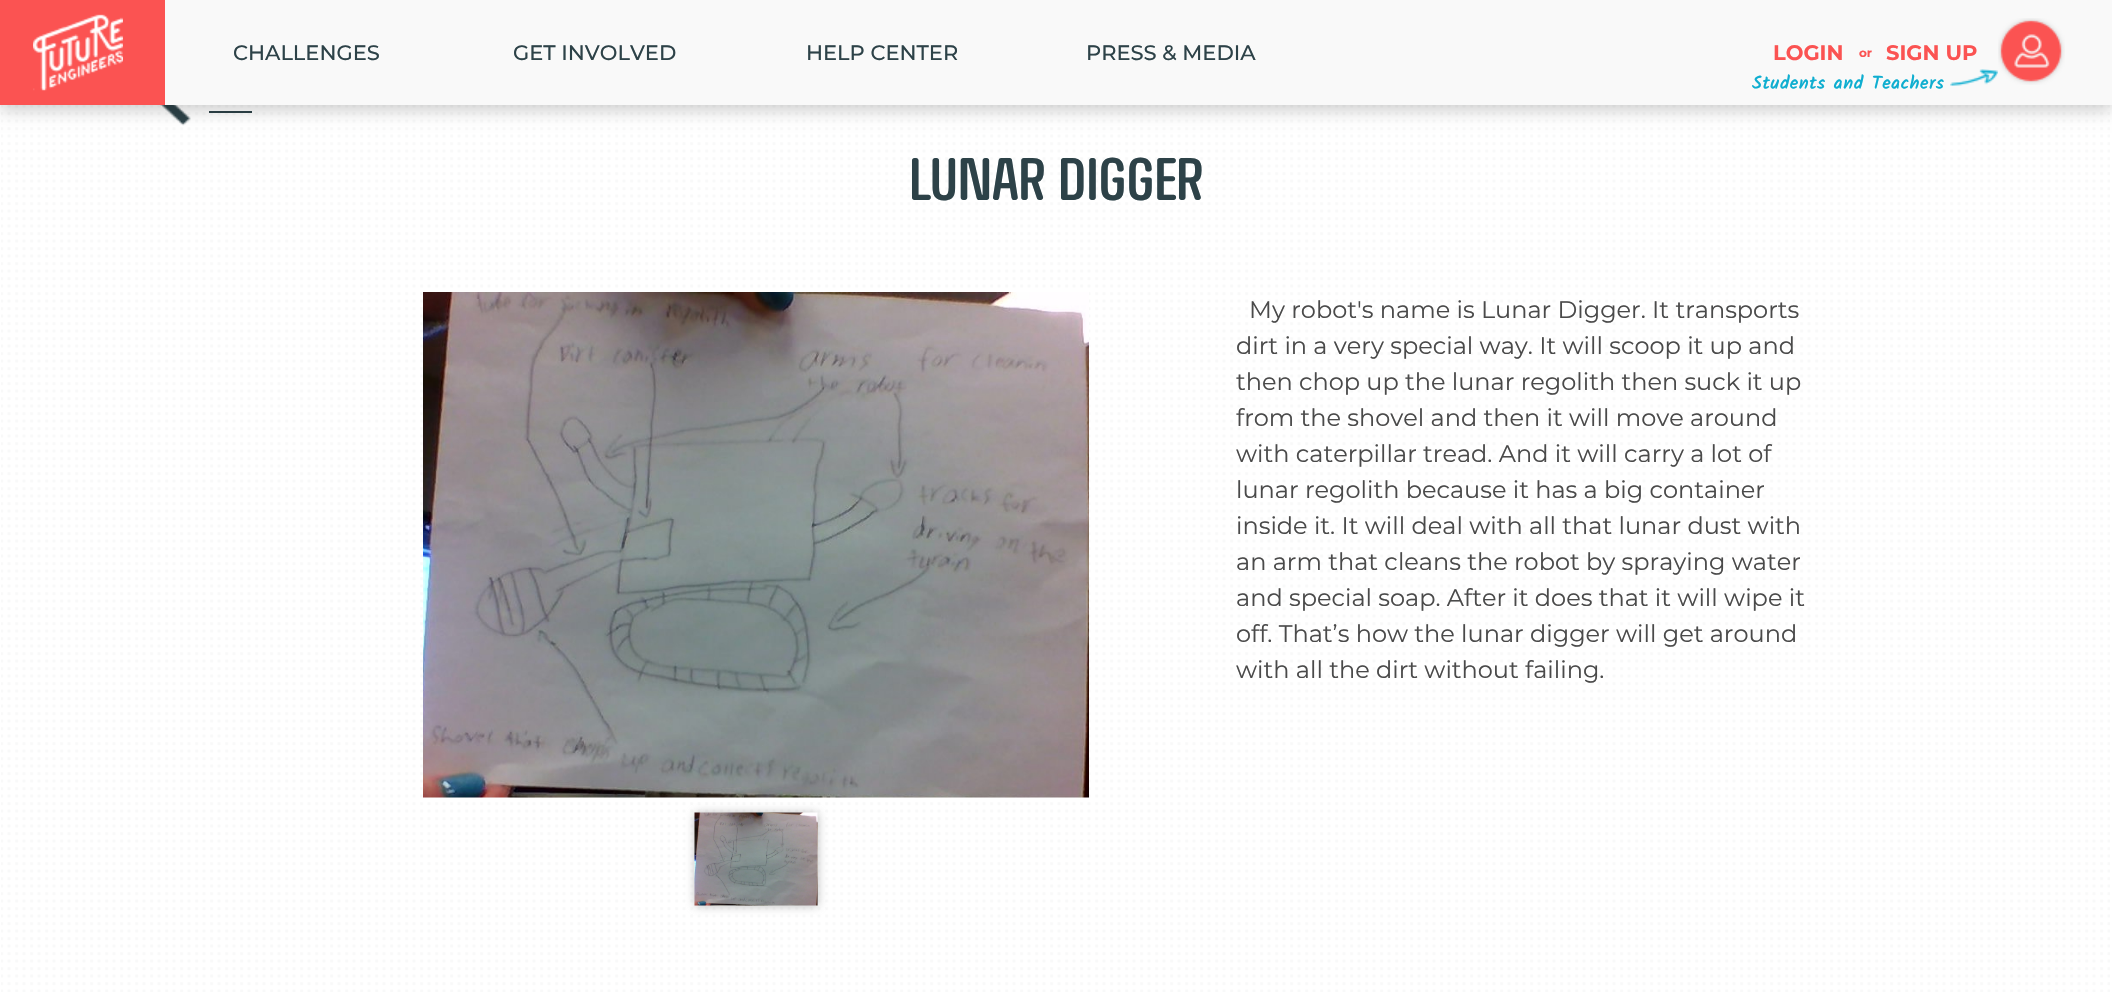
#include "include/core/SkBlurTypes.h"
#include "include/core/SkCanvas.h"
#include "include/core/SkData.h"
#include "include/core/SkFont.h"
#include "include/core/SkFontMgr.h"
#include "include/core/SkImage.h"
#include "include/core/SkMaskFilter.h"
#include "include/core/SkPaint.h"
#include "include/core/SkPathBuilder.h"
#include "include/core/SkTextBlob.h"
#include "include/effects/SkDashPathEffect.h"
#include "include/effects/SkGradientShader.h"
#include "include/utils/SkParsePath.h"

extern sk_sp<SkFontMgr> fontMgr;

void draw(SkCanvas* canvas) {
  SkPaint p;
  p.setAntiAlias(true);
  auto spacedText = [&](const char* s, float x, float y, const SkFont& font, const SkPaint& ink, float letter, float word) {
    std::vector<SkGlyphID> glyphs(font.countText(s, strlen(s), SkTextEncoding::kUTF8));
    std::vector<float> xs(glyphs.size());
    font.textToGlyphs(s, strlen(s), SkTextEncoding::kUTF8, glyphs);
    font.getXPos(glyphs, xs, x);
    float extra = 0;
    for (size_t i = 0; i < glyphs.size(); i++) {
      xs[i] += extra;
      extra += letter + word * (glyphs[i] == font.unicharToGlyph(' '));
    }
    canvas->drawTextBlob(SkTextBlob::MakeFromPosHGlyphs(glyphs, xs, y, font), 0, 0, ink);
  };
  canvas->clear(SK_ColorWHITE);
  canvas->drawImageRect(SkImages::DeferredFromEncodedData(SkData::MakeFromFileName("images/1.png")), SkRect::MakeLTRB(1, 105, 2110, 992), SkSamplingOptions());
  canvas->drawImageRect(SkImages::DeferredFromEncodedData(SkData::MakeFromFileName("images/5.png")), SkRect::MakeLTRB(160, 105, 191, 126), SkSamplingOptions());
  p.setColor(SkColorSetRGB(45, 66, 72));
  canvas->drawRect(SkRect::MakeLTRB(209, 111, 252, 113), p);
  p.setColor(SkColorSetARGB(46, 0, 0, 0));
  p.setMaskFilter(SkMaskFilter::MakeBlur(kNormal_SkBlurStyle, 7.5f));
  canvas->drawRect(SkRect::MakeLTRB(0, 6, 2112, 111), p);
  p.setMaskFilter(nullptr);
  p.setColor(SkColorSetRGB(249, 249, 249));
  canvas->drawRect(SkRect::MakeLTRB(165, 0, 2112, 105), p);
  p.setColor(SkColorSetRGB(251, 83, 82));
  canvas->drawRect(SkRect::MakeLTRB(0, 0, 165, 105), p);
  canvas->drawImageRect(SkImages::DeferredFromEncodedData(SkData::MakeFromFileName("images/2.png")), SkRect::MakeLTRB(33, 14, 123, 91), SkSamplingOptions());
  canvas->drawImageRect(SkImages::DeferredFromEncodedData(SkData::MakeFromFileName("images/3.png")), SkRect::MakeLTRB(1998, 18, 2065, 85), SkSamplingOptions());
  canvas->drawImageRect(SkImages::DeferredFromEncodedData(SkData::MakeFromFileName("images/4.png")), SkRect::MakeLTRB(1950, 69, 1998, 86), SkSamplingOptions());
  canvas->drawImageRect(SkImages::DeferredFromEncodedData(SkData::MakeFromFileName("images/6.png")), SkRect::MakeLTRB(423, 292, 1089, 798), SkSamplingOptions());
  p.setColor(SkColorSetARGB(168, 155, 155, 155));
  p.setMaskFilter(SkMaskFilter::MakeBlur(kNormal_SkBlurStyle, 4.5f));
  canvas->drawRect(SkRect::MakeLTRB(695, 813, 818, 906), p);
  p.setMaskFilter(nullptr);
  canvas->drawImageRect(SkImages::DeferredFromEncodedData(SkData::MakeFromFileName("images/7.png")), SkRect::MakeLTRB(694, 812, 818, 906), SkSamplingOptions());
  SkFont font1(fontMgr->matchFamilyStyle("Montserrat", SkFontStyle(500, SkFontStyle::kNormal_Width, SkFontStyle::kUpright_Slant)), 21);
  font1.setSubpixel(true);
  p.setColor(SkColorSetRGB(45, 66, 72));
  canvas->drawString("CHALLENGES", 233, 60, font1, p);
  canvas->drawString("GET INVOLVED", 513, 60, font1, p);
  canvas->drawString("HELP CENTER", 806, 60, font1, p);
  canvas->drawString("PRESS & MEDIA", 1086, 60, font1, p);
  SkFont font2(fontMgr->matchFamilyStyle("Montserrat", SkFontStyle::Bold()), 21);
  font2.setSubpixel(true);
  p.setColor(SkColorSetRGB(251, 83, 82));
  canvas->drawString("LOGIN", 1773, 60, font2, p);
  SkFont font3(fontMgr->matchFamilyStyle("Montserrat", SkFontStyle::Bold()), 12);
  font3.setSubpixel(true);
  canvas->drawString("or", 1859, 57, font3, p);
  canvas->drawString("SIGN UP", 1886, 60, font2, p);
  SkFont font4(fontMgr->matchFamilyStyle("Kalam", SkFontStyle::Bold()), 18);
  font4.setSubpixel(true);
  p.setColor(SkColorSetRGB(15, 174, 208));
  spacedText("Students and Teachers", 1752, 89, font4, p, 0.9f, 0);
  SkFont font5(fontMgr->matchFamilyStyle("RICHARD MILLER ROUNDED", SkFontStyle::Normal()), 60);
  font5.setSubpixel(true);
  p.setColor(SkColorSetRGB(45, 66, 72));
  canvas->drawString("Lunar Digger", 909, 200, font5, p);
  SkFont font6(fontMgr->matchFamilyStyle("Montserrat", SkFontStyle::Normal()), 24);
  font6.setSubpixel(true);
  p.setColor(SkColorSetRGB(74, 74, 74));
  canvas->drawString("My robot's name is Lunar Digger. It transports", 1249, 318, font6, p);
  canvas->drawString("dirt in a very special way. It will scoop it up and", 1236, 354, font6, p);
  canvas->drawString("then chop up the lunar regolith then suck it up", 1236, 390, font6, p);
  canvas->drawString("from the shovel and then it will move around", 1236, 426, font6, p);
  canvas->drawString("with caterpillar tread. And it will carry a lot of", 1236, 462, font6, p);
  canvas->drawString("lunar regolith because it has a big container", 1236, 498, font6, p);
  canvas->drawString("inside it. It will deal with all that lunar dust with", 1236, 534, font6, p);
  canvas->drawString("an arm that cleans the robot by spraying water", 1236, 570, font6, p);
  canvas->drawString("and special soap. After it does that it will wipe it", 1236, 606, font6, p);
  canvas->drawString("off. That’s how the lunar digger will get around", 1236, 642, font6, p);
  canvas->drawString("with all the dirt without failing.", 1236, 678, font6, p);
}
